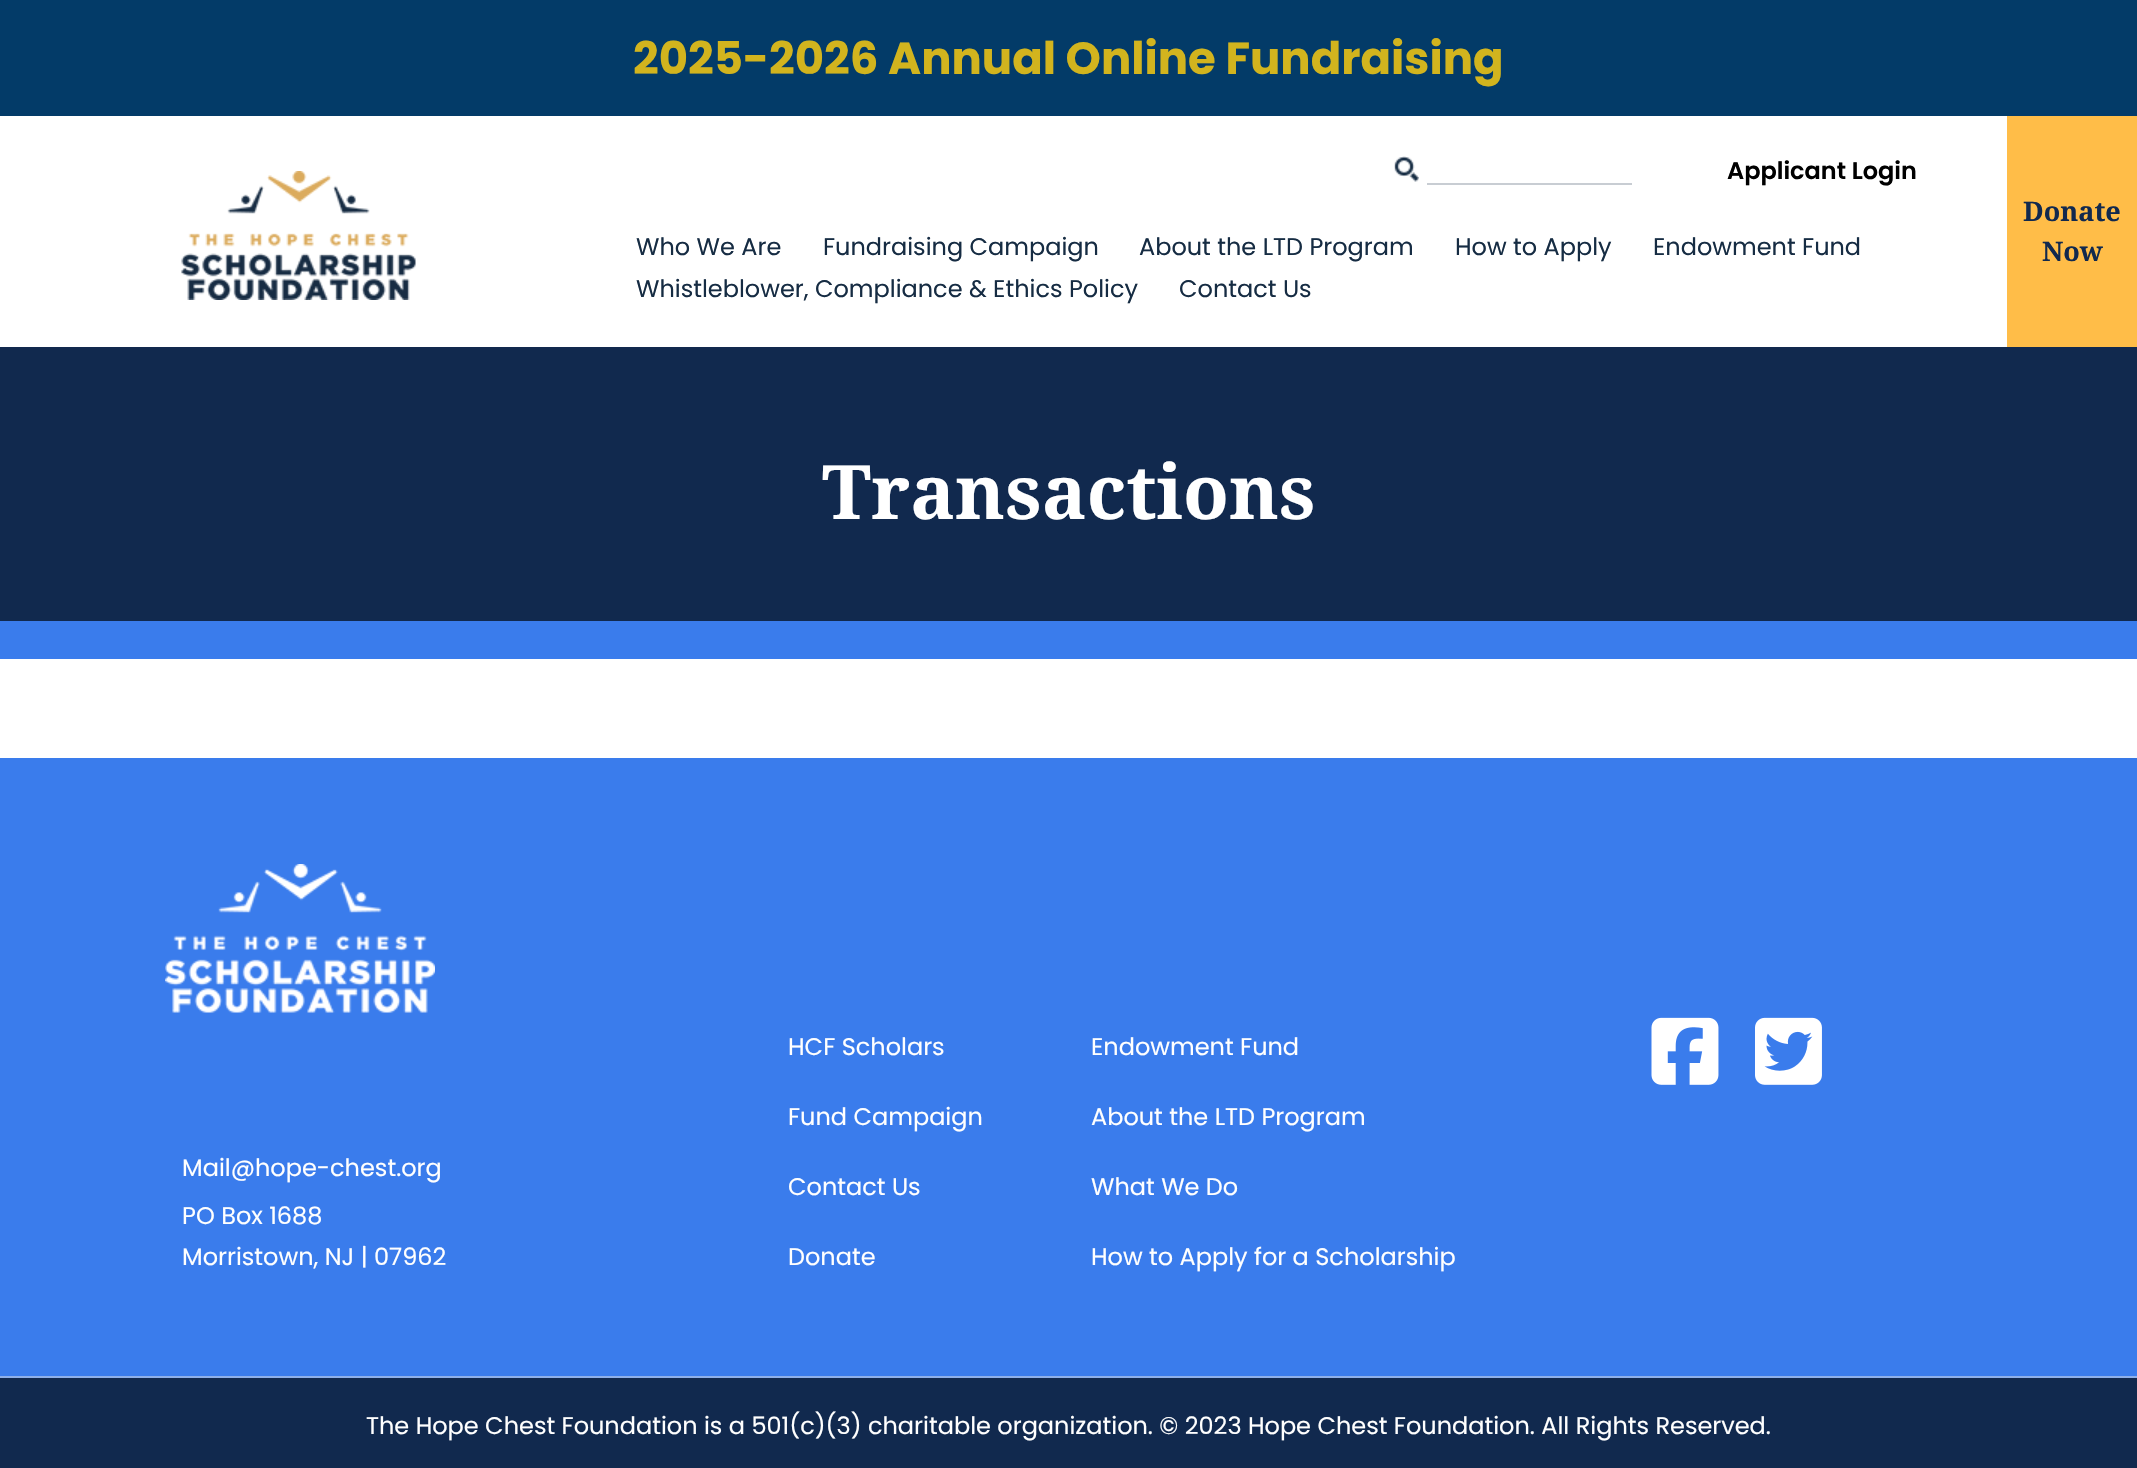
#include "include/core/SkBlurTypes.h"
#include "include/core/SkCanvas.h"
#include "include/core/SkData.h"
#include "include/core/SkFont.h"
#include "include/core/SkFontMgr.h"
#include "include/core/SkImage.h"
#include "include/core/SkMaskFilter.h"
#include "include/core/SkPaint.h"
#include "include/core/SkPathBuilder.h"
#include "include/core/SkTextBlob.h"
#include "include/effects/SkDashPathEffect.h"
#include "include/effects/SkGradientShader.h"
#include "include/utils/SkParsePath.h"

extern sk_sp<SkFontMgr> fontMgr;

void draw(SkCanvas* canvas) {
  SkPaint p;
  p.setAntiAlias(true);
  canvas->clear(SK_ColorWHITE);
  p.setColor(SkColorSetRGB(3, 59, 104));
  canvas->drawRect(SkRect::MakeLTRB(0, 0, 2137, 116), p);
  canvas->drawImageRect(SkImages::DeferredFromEncodedData(SkData::MakeFromFileName("images/1.png")), SkRect::MakeLTRB(181, 171, 416, 300), SkSamplingOptions());
  canvas->drawImageRect(SkImages::DeferredFromEncodedData(SkData::MakeFromFileName("images/2.png")), SkRect::MakeLTRB(1394, 156, 1419, 182), SkSamplingOptions());
  p.setColor(SkColorSetRGB(200, 205, 211));
  canvas->drawRect(SkRect::MakeLTRB(1427, 183, 1632, 185), p);
  p.setColor(SkColorSetRGB(255, 189, 72));
  canvas->drawRect(SkRect::MakeLTRB(2007, 116, 2137, 347), p);
  p.setColor(SkColorSetRGB(17, 41, 78));
  canvas->drawRect(SkRect::MakeLTRB(0, 347, 2137, 621), p);
  p.setColor(SkColorSetRGB(58, 124, 236));
  canvas->drawRect(SkRect::MakeLTRB(0, 621, 2137, 659), p);
  canvas->drawRect(SkRect::MakeLTRB(0, 758, 2137, 1376), p);
  canvas->drawImageRect(SkImages::DeferredFromEncodedData(SkData::MakeFromFileName("images/3.png")), SkRect::MakeLTRB(165, 864, 435, 1013), SkSamplingOptions());
  canvas->drawImageRect(SkImages::DeferredFromEncodedData(SkData::MakeFromFileName("images/4.png")), SkRect::MakeLTRB(1651, 1017, 1719, 1085), SkSamplingOptions());
  canvas->drawImageRect(SkImages::DeferredFromEncodedData(SkData::MakeFromFileName("images/5.png")), SkRect::MakeLTRB(1755, 1017, 1822, 1085), SkSamplingOptions());
  p.setColor(SkColorSetRGB(17, 41, 78));
  canvas->drawRect(SkRect::MakeLTRB(0, 1378, 2137, 1468), p);
  p.setColor(SkColorSetRGB(142, 176, 234));
  canvas->drawRect(SkRect::MakeLTRB(0, 1376, 2137, 1378), p);
  SkFont font1(fontMgr->matchFamilyStyle("Poppins", SkFontStyle::Bold()), 45);
  font1.setSubpixel(true);
  p.setColor(SkColorSetRGB(210, 180, 30));
  canvas->drawString("2025-2026 Annual Online Fundraising", 633, 74, font1, p);
  SkFont font2(fontMgr->matchFamilyStyle("Poppins", SkFontStyle(600, SkFontStyle::kNormal_Width, SkFontStyle::kUpright_Slant)), 24);
  font2.setSubpixel(true);
  p.setColor(SK_ColorBLACK);
  canvas->drawString("Applicant Login", 1727, 179, font2, p);
  SkFont font3(fontMgr->matchFamilyStyle("Poppins", SkFontStyle::Normal()), 24);
  font3.setSubpixel(true);
  p.setColor(SkColorSetRGB(22, 44, 67));
  canvas->drawString("Who We Are", 636, 255, font3, p);
  canvas->drawString("Fundraising Campaign", 823, 255, font3, p);
  canvas->drawString("About the LTD Program", 1139, 255, font3, p);
  canvas->drawString("How to Apply", 1455, 255, font3, p);
  canvas->drawString("Endowment Fund", 1653, 255, font3, p);
  canvas->drawString("Whistleblower, Compliance & Ethics Policy", 636, 297, font3, p);
  canvas->drawString("Contact Us", 1179, 297, font3, p);
  SkFont font4(fontMgr->matchFamilyStyle("Droid Serif", SkFontStyle::Bold()), 27);
  font4.setSubpixel(true);
  p.setColor(SkColorSetRGB(17, 41, 78));
  canvas->drawString("Donate", 2023, 221, font4, p);
  canvas->drawString("Now", 2042, 261, font4, p);
  SkFont font5(fontMgr->matchFamilyStyle("Droid Serif", SkFontStyle::Bold()), 75);
  font5.setSubpixel(true);
  p.setColor(SK_ColorWHITE);
  canvas->drawString("Transactions", 822, 519, font5, p);
  canvas->drawString("Mail@hope-chest.org", 182, 1176, font3, p);
  canvas->drawString("PO Box 1688", 182, 1224, font3, p);
  canvas->drawString("Morristown, NJ | 07962", 182, 1265, font3, p);
  canvas->drawString("HCF Scholars", 788, 1055, font3, p);
  canvas->drawString("Fund Campaign", 788, 1125, font3, p);
  canvas->drawString("Contact Us", 788, 1195, font3, p);
  canvas->drawString("Donate", 788, 1265, font3, p);
  canvas->drawString("Endowment Fund", 1091, 1055, font3, p);
  canvas->drawString("About the LTD Program", 1091, 1125, font3, p);
  canvas->drawString("What We Do", 1091, 1195, font3, p);
  canvas->drawString("How to Apply for a Scholarship", 1091, 1265, font3, p);
  canvas->drawString("The Hope Chest Foundation is a 501(c)(3) charitable organization. © 2023 Hope Chest Foundation. All Rights Reserved.", 366, 1434, font3, p);
}
